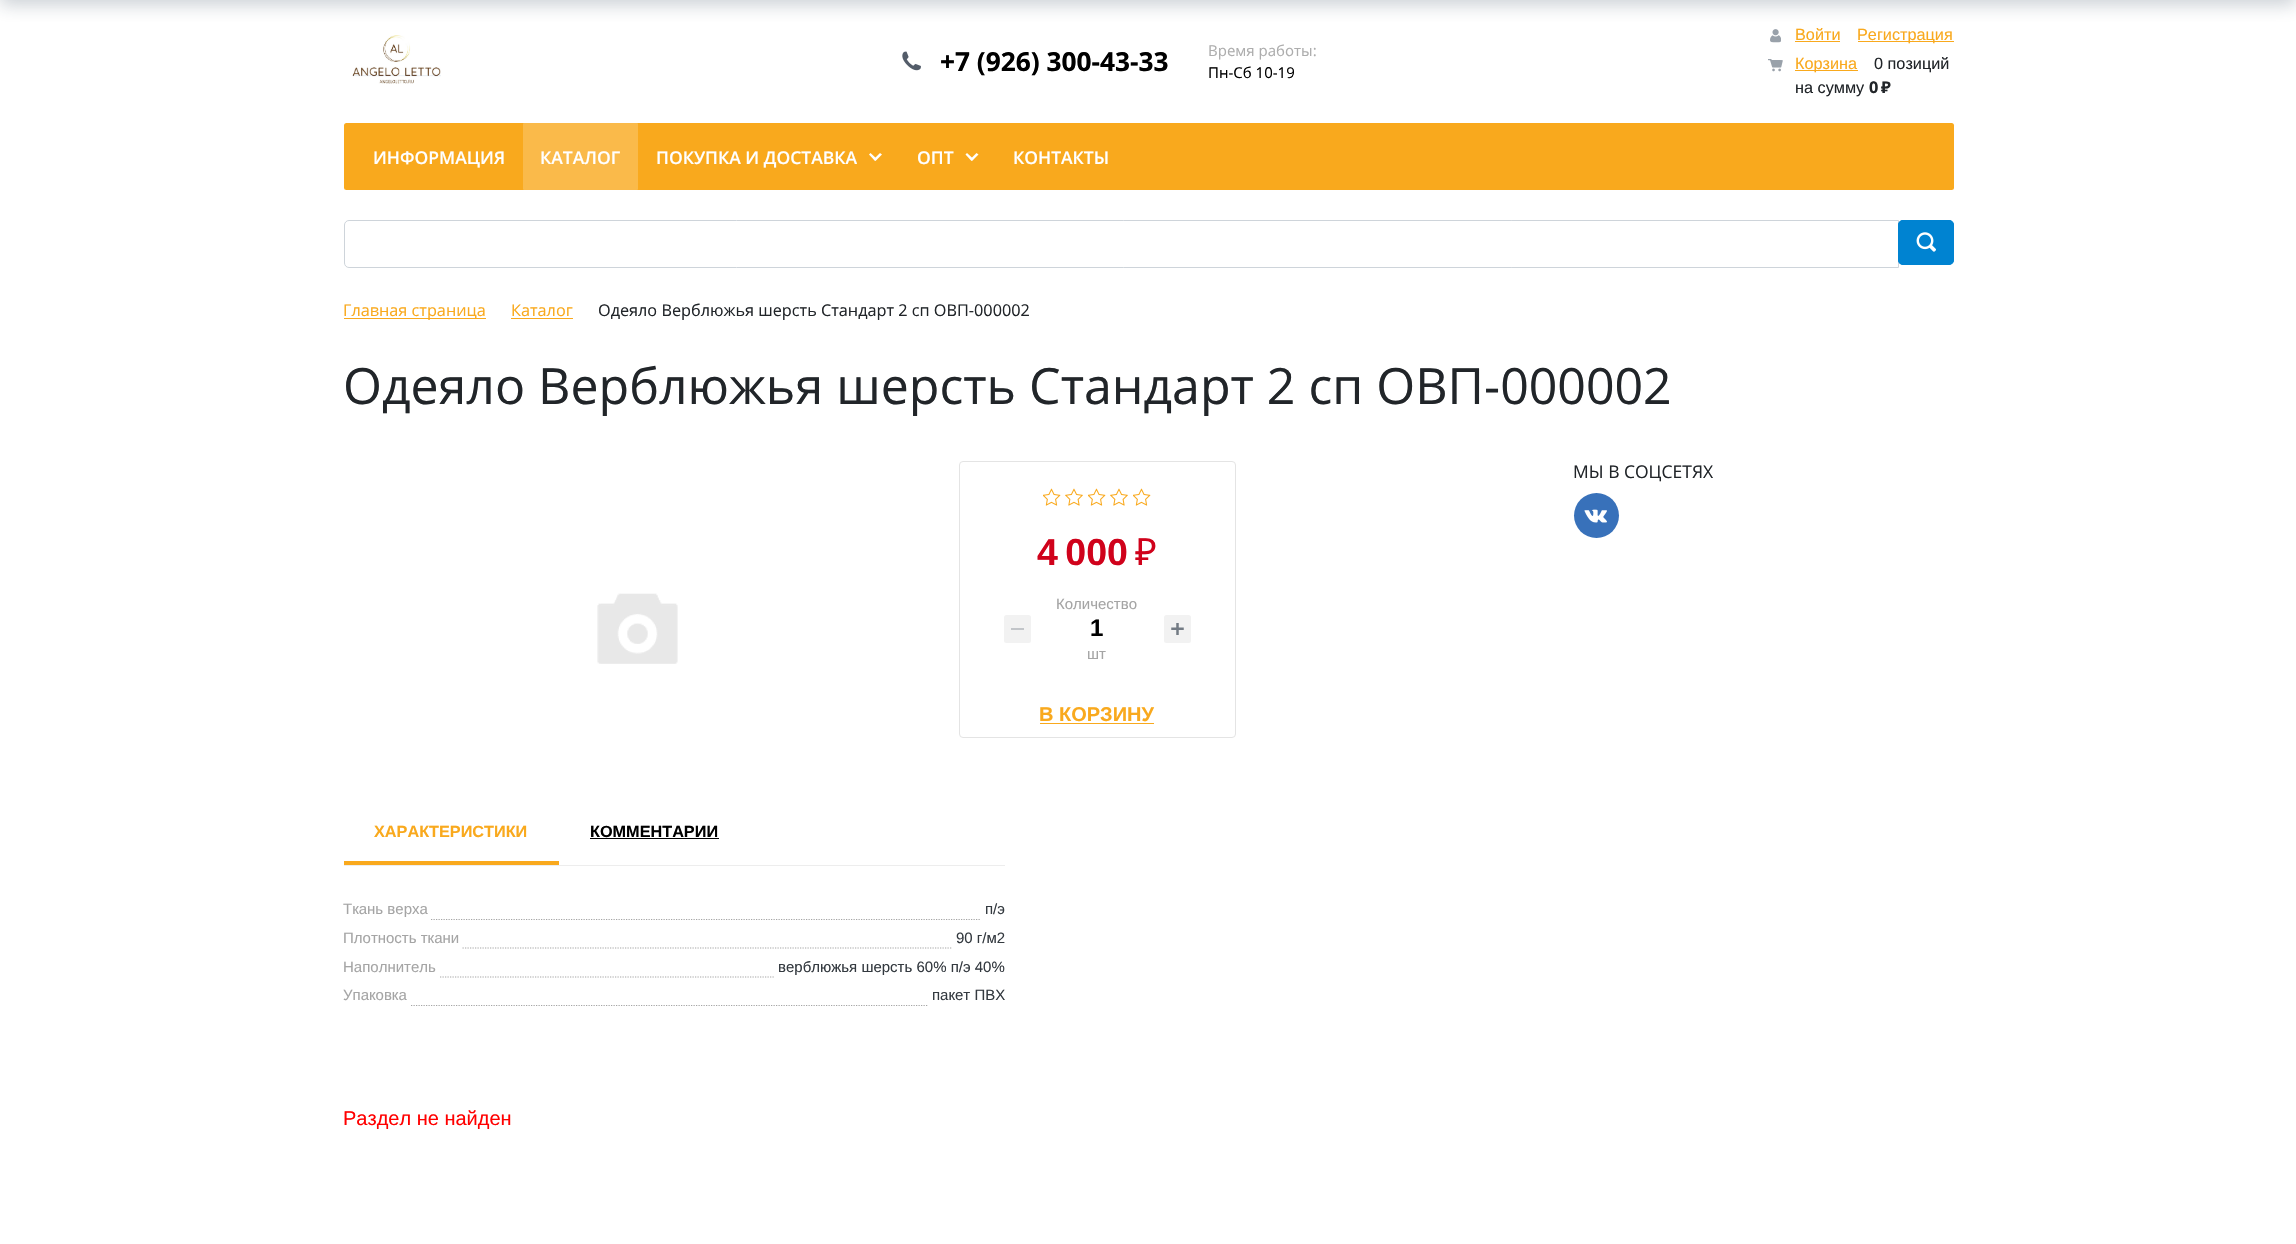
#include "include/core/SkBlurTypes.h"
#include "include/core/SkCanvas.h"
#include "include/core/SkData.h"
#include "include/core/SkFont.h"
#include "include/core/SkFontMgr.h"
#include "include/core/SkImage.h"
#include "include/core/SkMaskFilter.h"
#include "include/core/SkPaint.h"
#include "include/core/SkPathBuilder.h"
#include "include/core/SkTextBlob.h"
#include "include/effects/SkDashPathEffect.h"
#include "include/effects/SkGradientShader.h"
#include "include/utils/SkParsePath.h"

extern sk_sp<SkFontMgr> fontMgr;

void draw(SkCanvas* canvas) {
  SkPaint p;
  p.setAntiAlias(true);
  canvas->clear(SK_ColorWHITE);
  canvas->drawImageRect(SkImages::DeferredFromEncodedData(SkData::MakeFromFileName("images/1.png")), SkRect::MakeLTRB(352, 35, 441, 84), SkSamplingOptions());
  canvas->drawImageRect(SkImages::DeferredFromEncodedData(SkData::MakeFromFileName("images/2.png")), SkRect::MakeLTRB(902, 51, 921, 71), SkSamplingOptions());
  canvas->drawImageRect(SkImages::DeferredFromEncodedData(SkData::MakeFromFileName("images/3.png")), SkRect::MakeLTRB(1770, 29, 1781, 43), SkSamplingOptions());
  p.setColor(SkColorSetRGB(249, 169, 29));
  canvas->drawRect(SkRect::MakeLTRB(1795, 41, 1840, 42), p);
  canvas->drawRect(SkRect::MakeLTRB(1858, 41, 1954, 42), p);
  canvas->drawImageRect(SkImages::DeferredFromEncodedData(SkData::MakeFromFileName("images/4.png")), SkRect::MakeLTRB(1768, 59, 1783, 72), SkSamplingOptions());
  canvas->drawRect(SkRect::MakeLTRB(1795, 70, 1858, 71), p);
  canvas->drawRoundRect(SkRect::MakeLTRB(344, 123, 1954, 190), 2.5f, 2.5f, p);
  p.setColor(SkColorSetRGB(250, 186, 74));
  canvas->drawRoundRect(SkRect::MakeLTRB(523, 123, 638, 190), 1, 1, p);
  p.setColor(SK_ColorWHITE);
  canvas->drawPath(SkPathBuilder().moveTo(874, 159).lineTo(880, 153).lineTo(882, 154.5f).lineTo(875.5f, 161).close().detach(), p);
  canvas->drawPath(SkPathBuilder().moveTo(870.5f, 153).lineTo(877, 159).lineTo(875, 161).lineTo(869, 154.5f).close().detach(), p);
  canvas->drawPath(SkPathBuilder().moveTo(970.5f, 159).lineTo(976.5f, 153).lineTo(978.5f, 154.5f).lineTo(972, 161).close().detach(), p);
  canvas->drawPath(SkPathBuilder().moveTo(967, 153).lineTo(973.5f, 159).lineTo(971.5f, 161).lineTo(965.5f, 154.5f).close().detach(), p);
  p.setStyle(SkPaint::kStroke_Style);
  p.setStrokeWidth(1);
  p.setColor(SkColorSetRGB(206, 212, 218));
  canvas->drawPath(SkPathBuilder().moveTo(349, 220.5f).lineTo(1898.5f, 220.5f).lineTo(1898.5f, 267.5f).lineTo(349, 267.5f).cubicTo(346.5f, 267.5f, 344.5f, 265.5f, 344.5f, 263).lineTo(344.5f, 225).cubicTo(344.5f, 222.5f, 346.5f, 220.5f, 349, 220.5f).close().detach(), p);
  p.setStyle(SkPaint::kFill_Style);
  p.setColor(SkColorSetRGB(0, 131, 209));
  canvas->drawRoundRect(SkRect::MakeLTRB(1898, 220, 1954, 265), 5, 5, p);
  canvas->drawImageRect(SkImages::DeferredFromEncodedData(SkData::MakeFromFileName("images/5.png")), SkRect::MakeLTRB(1916, 232, 1936, 252), SkSamplingOptions());
  p.setStyle(SkPaint::kStroke_Style);
  canvas->drawRoundRect(SkRect::MakeLTRB(1898.5f, 220.5f, 1953.5f, 264.5f), 4.5f, 4.5f, p);
  p.setStyle(SkPaint::kFill_Style);
  p.setColor(SkColorSetRGB(249, 169, 29));
  canvas->drawRect(SkRect::MakeLTRB(344, 318, 486, 319), p);
  canvas->drawRect(SkRect::MakeLTRB(511, 318, 573, 319), p);
  p.setColor(SkColorSetRGB(56, 113, 186));
  canvas->drawCircle(1596.5f, 515.5f, 22.5f, p);
  canvas->drawImageRect(SkImages::DeferredFromEncodedData(SkData::MakeFromFileName("images/6.png")), SkRect::MakeLTRB(1584, 509, 1607, 523), SkSamplingOptions());
  p.setColor(SkColorSetARGB(59, 32, 54, 74));
  p.setMaskFilter(SkMaskFilter::MakeBlur(kNormal_SkBlurStyle, 9));
  canvas->drawRect(SkRect::MakeLTRB(0, -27, 2296, 5), p);
  p.setMaskFilter(nullptr);
  canvas->drawImageRect(SkImages::DeferredFromEncodedData(SkData::MakeFromFileName("images/7.png")), SkRect::MakeLTRB(597, 593, 678, 664), SkSamplingOptions());
  p.setStyle(SkPaint::kStroke_Style);
  p.setColor(SkColorSetRGB(228, 228, 228));
  canvas->drawRoundRect(SkRect::MakeLTRB(959.5f, 461.5f, 1235.5f, 737.5f), 3.5f, 3.5f, p);
  canvas->drawImageRect(SkImages::DeferredFromEncodedData(SkData::MakeFromFileName("images/8.png")), SkRect::MakeLTRB(1043, 488, 1061, 506), SkSamplingOptions());
  canvas->drawImageRect(SkImages::DeferredFromEncodedData(SkData::MakeFromFileName("images/9.png")), SkRect::MakeLTRB(1065, 488, 1083, 506), SkSamplingOptions());
  canvas->drawImageRect(SkImages::DeferredFromEncodedData(SkData::MakeFromFileName("images/8.png")), SkRect::MakeLTRB(1088, 488, 1106, 506), SkSamplingOptions());
  canvas->drawImageRect(SkImages::DeferredFromEncodedData(SkData::MakeFromFileName("images/9.png")), SkRect::MakeLTRB(1110, 488, 1128, 506), SkSamplingOptions());
  canvas->drawImageRect(SkImages::DeferredFromEncodedData(SkData::MakeFromFileName("images/8.png")), SkRect::MakeLTRB(1133, 488, 1151, 506), SkSamplingOptions());
  p.setStyle(SkPaint::kFill_Style);
  p.setColor(SkColorSetRGB(242, 242, 242));
  canvas->drawRoundRect(SkRect::MakeLTRB(1004, 615, 1031, 643), 2.5f, 2.5f, p);
  p.setColor(SkColorSetRGB(194, 197, 201));
  canvas->drawRect(SkRect::MakeLTRB(1011, 628, 1024, 630), p);
  p.setColor(SkColorSetRGB(242, 242, 242));
  canvas->drawRoundRect(SkRect::MakeLTRB(1164, 615, 1191, 643), 2.5f, 2.5f, p);
  canvas->drawImageRect(SkImages::DeferredFromEncodedData(SkData::MakeFromFileName("images/10.png")), SkRect::MakeLTRB(1171, 623, 1184, 635), SkSamplingOptions());
  p.setColor(SkColorSetRGB(249, 169, 29));
  canvas->drawRect(SkRect::MakeLTRB(1040, 723, 1154, 724), p);
  p.setColor(SkColorSetRGB(237, 237, 237));
  canvas->drawRect(SkRect::MakeLTRB(344, 865, 1005, 866), p);
  p.setColor(SkColorSetRGB(249, 169, 29));
  canvas->drawRect(SkRect::MakeLTRB(344, 861, 559, 865), p);
  p.setColor(SK_ColorBLACK);
  canvas->drawRect(SkRect::MakeLTRB(590, 838, 719, 839), p);
  p.setStyle(SkPaint::kStroke_Style);
  p.setStrokeWidth(1.2f);
  p.setColor(SkColorSetRGB(165, 165, 165));
  p.setPathEffect(SkDashPathEffect::Make({{1.25f, 1.25f}}, 0));
  canvas->drawPath(SkPathBuilder().moveTo(431, 919.5f).lineTo(981, 919.5f).detach(), p);
  p.setPathEffect(nullptr);
  p.setPathEffect(SkDashPathEffect::Make({{1.25f, 1.25f}}, 0));
  canvas->drawPath(SkPathBuilder().moveTo(462.5f, 948).lineTo(952.5f, 948).detach(), p);
  p.setPathEffect(nullptr);
  p.setPathEffect(SkDashPathEffect::Make({{1.25f, 1.25f}}, 0));
  canvas->drawPath(SkPathBuilder().moveTo(440, 977).lineTo(775, 977).detach(), p);
  p.setPathEffect(nullptr);
  p.setPathEffect(SkDashPathEffect::Make({{1.25f, 1.25f}}, 0));
  canvas->drawPath(SkPathBuilder().moveTo(411, 1005.5f).lineTo(927.5f, 1005.5f).detach(), p);
  p.setPathEffect(nullptr);
  SkFont font1(fontMgr->matchFamilyStyle("Open Sans", SkFontStyle::Bold()), 26.25f);
  font1.setSubpixel(true);
  p.setStyle(SkPaint::kFill_Style);
  p.setColor(SK_ColorBLACK);
  canvas->drawString("+7 (926) 300-43-33", 940, 71, font1, p);
  SkFont font2(fontMgr->matchFamilyStyle("Open Sans", SkFontStyle::Normal()), 15);
  font2.setSubpixel(true);
  p.setColor(SkColorSetRGB(173, 173, 173));
  canvas->drawString("Время работы:", 1208, 56, font2, p);
  p.setColor(SK_ColorBLACK);
  canvas->drawString("Пн-Сб 10-19", 1208, 78, font2, p);
  SkFont font3(fontMgr->matchFamilyStyle("Liberation Sans", SkFontStyle::Normal()), 16.25f);
  font3.setSubpixel(true);
  p.setColor(SkColorSetRGB(249, 169, 29));
  canvas->drawString("Войти", 1795, 40, font3, p);
  canvas->drawString("Регистрация", 1857, 40, font3, p);
  canvas->drawString("Корзина", 1795, 69, font3, p);
  p.setColor(SkColorSetRGB(33, 37, 41));
  canvas->drawString("0 позиций", 1874, 69, font3, p);
  canvas->drawString("на сумму", 1795, 93, font3, p);
  SkFont font4(fontMgr->matchFamilyStyle("Noto Sans", SkFontStyle::Bold()), 16.25f);
  font4.setSubpixel(true);
  canvas->drawString("0 ₽", 1869, 93, font4, p);
  SkFont font5(fontMgr->matchFamilyStyle("Open Sans", SkFontStyle(600, SkFontStyle::kNormal_Width, SkFontStyle::kUpright_Slant)), 17.5f);
  font5.setSubpixel(true);
  p.setColor(SK_ColorWHITE);
  canvas->drawString("ИНФОРМАЦИЯ", 373, 164, font5, p);
  canvas->drawString("КАТАЛОГ", 540, 164, font5, p);
  canvas->drawString("ПОКУПКА И ДОСТАВКА", 656, 164, font5, p);
  canvas->drawString("ОПТ", 917, 164, font5, p);
  canvas->drawString("КОНТАКТЫ", 1013, 164, font5, p);
  SkFont font6(fontMgr->matchFamilyStyle("Open Sans", SkFontStyle::Normal()), 16.25f);
  font6.setSubpixel(true);
  p.setColor(SkColorSetRGB(249, 169, 29));
  canvas->drawString("Главная страница", 343, 316, font6, p);
  canvas->drawString("Каталог", 511, 316, font6, p);
  p.setColor(SkColorSetRGB(33, 37, 41));
  canvas->drawString("Одеяло Верблюжья шерсть Стандарт 2 сп ОВП-000002", 598, 316, font6, p);
  SkFont font7(fontMgr->matchFamilyStyle("Open Sans", SkFontStyle::Normal()), 50);
  font7.setSubpixel(true);
  canvas->drawString("Одеяло Верблюжья шерсть Стандарт 2 сп ОВП-000002", 343, 404, font7, p);
  SkFont font8(fontMgr->matchFamilyStyle("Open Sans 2", SkFontStyle::Normal()), 17.5f);
  font8.setSubpixel(true);
  canvas->drawString("МЫ В СОЦСЕТЯХ", 1573, 478, font8, p);
  SkFont font9(fontMgr->matchFamilyStyle("Liberation Sans", SkFontStyle::Bold()), 37.5f);
  font9.setSubpixel(true);
  p.setColor(SkColorSetRGB(208, 2, 27));
  canvas->drawString("4 000", 1037, 565, font9, p);
  SkFont font10(fontMgr->matchFamilyStyle("Noto Sans", SkFontStyle::Normal()), 37.5f);
  font10.setSubpixel(true);
  canvas->drawString("₽", 1135, 565, font10, p);
  SkFont font11(fontMgr->matchFamilyStyle("Liberation Sans", SkFontStyle::Normal()), 15);
  font11.setSubpixel(true);
  p.setColor(SkColorSetRGB(165, 165, 165));
  canvas->drawString("Количество", 1056, 609, font11, p);
  SkFont font12(fontMgr->matchFamilyStyle("Liberation Sans", SkFontStyle::Bold()), 24);
  font12.setSubpixel(true);
  p.setColor(SK_ColorBLACK);
  canvas->drawString("1", 1090, 636, font12, p);
  p.setColor(SkColorSetRGB(165, 165, 165));
  canvas->drawString("шт", 1087, 659, font11, p);
  SkFont font13(fontMgr->matchFamilyStyle("Liberation Sans", SkFontStyle::Bold()), 20);
  font13.setSubpixel(true);
  p.setColor(SkColorSetRGB(249, 169, 29));
  canvas->drawString("В КОРЗИНУ", 1039, 721, font13, p);
  SkFont font14(fontMgr->matchFamilyStyle("Liberation Sans", SkFontStyle::Bold()), 16.25f);
  font14.setSubpixel(true);
  canvas->drawString("ХАРАКТЕРИСТИКИ", 374, 837, font14, p);
  p.setColor(SK_ColorBLACK);
  canvas->drawString("КОММЕНТАРИИ", 590, 837, font14, p);
  p.setColor(SkColorSetRGB(165, 165, 165));
  canvas->drawString("Ткань верха", 343, 914, font11, p);
  p.setColor(SkColorSetRGB(52, 58, 64));
  canvas->drawString("п/э", 985, 914, font11, p);
  p.setColor(SkColorSetRGB(165, 165, 165));
  canvas->drawString("Плотность ткани", 343, 943, font11, p);
  p.setColor(SkColorSetRGB(52, 58, 64));
  canvas->drawString("90 г/м2", 956, 943, font11, p);
  p.setColor(SkColorSetRGB(165, 165, 165));
  canvas->drawString("Наполнитель", 343, 972, font11, p);
  p.setColor(SkColorSetRGB(52, 58, 64));
  canvas->drawString("верблюжья шерсть 60% п/э 40%", 778, 972, font11, p);
  p.setColor(SkColorSetRGB(165, 165, 165));
  canvas->drawString("Упаковка", 343, 1000, font11, p);
  p.setColor(SkColorSetRGB(52, 58, 64));
  canvas->drawString("пакет ПВХ", 932, 1000, font11, p);
  SkFont font15(fontMgr->matchFamilyStyle("Liberation Sans", SkFontStyle::Normal()), 20);
  font15.setSubpixel(true);
  p.setColor(SkColorSetRGB(255, 0, 0));
  canvas->drawString("Раздел не найден", 343, 1125, font15, p);
}
